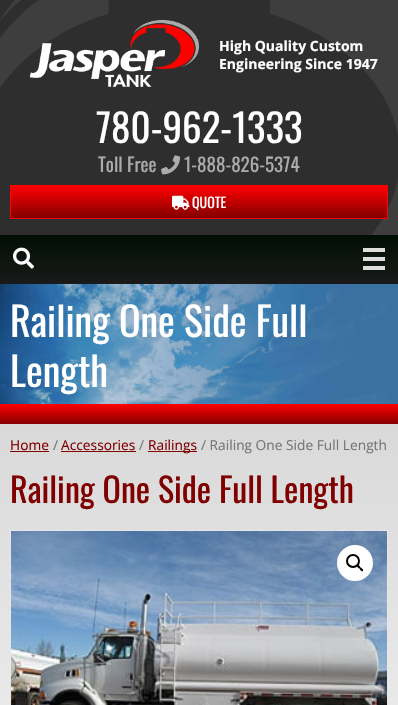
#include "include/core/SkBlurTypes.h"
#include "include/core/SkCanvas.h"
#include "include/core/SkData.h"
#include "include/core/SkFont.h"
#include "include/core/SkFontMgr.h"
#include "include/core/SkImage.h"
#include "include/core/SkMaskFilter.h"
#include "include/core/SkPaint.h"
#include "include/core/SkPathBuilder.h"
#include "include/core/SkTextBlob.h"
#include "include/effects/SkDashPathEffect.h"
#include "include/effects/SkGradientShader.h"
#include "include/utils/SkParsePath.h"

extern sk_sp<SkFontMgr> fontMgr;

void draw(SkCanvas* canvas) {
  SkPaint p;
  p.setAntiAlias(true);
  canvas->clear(SkColorSetRGB(46, 46, 46));
  canvas->drawImageRect(SkImages::DeferredFromEncodedData(SkData::MakeFromFileName("images/1.png")), SkRect::MakeLTRB(0, 0, 398, 235), SkSamplingOptions());
  canvas->drawImageRect(SkImages::DeferredFromEncodedData(SkData::MakeFromFileName("images/2.png")), SkRect::MakeLTRB(30, 20, 199, 87), SkSamplingOptions());
  canvas->drawImageRect(SkImages::DeferredFromEncodedData(SkData::MakeFromFileName("images/3.png")), SkRect::MakeLTRB(161, 155, 180, 175), SkSamplingOptions());
  {
    const SkColor colors[] = {SkColorSetRGB(255, 0, 0), SkColorSetRGB(130, 0, 0)};
    const float stops[] = {0, 1};
    const SkPoint ends[] = {{199, 186}, {199, 218}};
    p.setShader(SkGradientShader::MakeLinear(ends, colors, stops, 2, SkTileMode::kClamp));
    p.setAlpha(255);
  }
  canvas->drawRect(SkRect::MakeLTRB(11, 186, 387, 218), p);
  p.setStyle(SkPaint::kStroke_Style);
  p.setStrokeWidth(1);
  p.setShader(nullptr);
  p.setColor(SkColorSetRGB(255, 0, 0));
  canvas->drawRect(SkRect::MakeLTRB(10.5f, 185.5f, 387.5f, 218.5f), p);
  canvas->drawImageRect(SkImages::DeferredFromEncodedData(SkData::MakeFromFileName("images/4.png")), SkRect::MakeLTRB(172, 195, 190, 210), SkSamplingOptions());
  p.setStyle(SkPaint::kFill_Style);
  {
    const SkColor colors[] = {SkColorSetRGB(0, 15, 4), SkColorSetRGB(26, 26, 26)};
    const float stops[] = {0, 1};
    const SkPoint ends[] = {{199, 235}, {199, 284}};
    p.setShader(SkGradientShader::MakeLinear(ends, colors, stops, 2, SkTileMode::kClamp));
    p.setAlpha(255);
  }
  canvas->drawRect(SkRect::MakeLTRB(0, 235, 398, 284), p);
  canvas->drawImageRect(SkImages::DeferredFromEncodedData(SkData::MakeFromFileName("images/5.png")), SkRect::MakeLTRB(13, 247, 34, 269), SkSamplingOptions());
  p.setShader(nullptr);
  p.setColor(SkColorSetRGB(222, 222, 222));
  canvas->drawRect(SkRect::MakeLTRB(363, 248, 385, 252), p);
  canvas->drawRect(SkRect::MakeLTRB(363, 257, 385, 261), p);
  canvas->drawRect(SkRect::MakeLTRB(363, 266, 385, 270), p);
  {
    const SkColor colors[] = {SkColorSetRGB(209, 209, 209), SK_ColorWHITE, SK_ColorWHITE};
    const float stops[] = {0, 0.45f, 1};
    const SkPoint ends[] = {{199, 284}, {199, 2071}};
    p.setShader(SkGradientShader::MakeLinear(ends, colors, stops, 3, SkTileMode::kClamp));
    p.setAlpha(255);
  }
  canvas->drawRect(SkRect::MakeLTRB(0, 424, 398, 705), p);
  canvas->drawImageRect(SkImages::DeferredFromEncodedData(SkData::MakeFromFileName("images/6.png")), SkRect::MakeLTRB(0, 284, 398, 404), SkSamplingOptions());
  {
    const SkColor colors[] = {SkColorSetRGB(255, 0, 0), SkColorSetRGB(130, 0, 0)};
    const float stops[] = {0, 1};
    const SkPoint ends[] = {{199, 404}, {199, 424}};
    p.setShader(SkGradientShader::MakeLinear(ends, colors, stops, 2, SkTileMode::kClamp));
    p.setAlpha(255);
  }
  canvas->drawRect(SkRect::MakeLTRB(0, 404, 398, 424), p);
  p.setShader(nullptr);
  p.setColor(SkColorSetRGB(128, 0, 0));
  canvas->drawRect(SkRect::MakeLTRB(10, 451, 49, 452), p);
  canvas->drawRect(SkRect::MakeLTRB(61, 451, 136, 452), p);
  canvas->drawRect(SkRect::MakeLTRB(148, 451, 197, 452), p);
  p.setStyle(SkPaint::kStroke_Style);
  p.setColor(SkColorSetRGB(230, 230, 230));
  canvas->drawRect(SkRect::MakeLTRB(10.5f, 530.5f, 387.5f, 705.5f), p);
  canvas->drawImageRect(SkImages::DeferredFromEncodedData(SkData::MakeFromFileName("images/7.png")), SkRect::MakeLTRB(11, 531, 387, 705), SkSamplingOptions());
  p.setStyle(SkPaint::kFill_Style);
  p.setColor(SK_ColorWHITE);
  canvas->drawCircle(355, 563, 18, p);
  p.setStyle(SkPaint::kStroke_Style);
  p.setStrokeWidth(2);
  p.setColor(SK_ColorBLACK);
  canvas->drawCircle(353, 561, 6, p);
  p.setStyle(SkPaint::kFill_Style);
  canvas->drawPath(SkPathBuilder().moveTo(357, 565).cubicTo(358.5f, 564, 360, 566.5f, 360.5f, 567.5f).cubicTo(361.5f, 568, 364, 569.5f, 363, 571).cubicTo(361.5f, 572, 360, 569.5f, 359.5f, 568.5f).cubicTo(358.5f, 568, 356, 566.5f, 357, 565).close().detach(), p);
  SkFont font1(fontMgr->matchFamilyStyle("Open Sans", SkFontStyle::Bold()), 14);
  font1.setSubpixel(true);
  p.setColor(SK_ColorWHITE);
  canvas->drawString("High Quality Custom", 219, 51, font1, p);
  canvas->drawString("Engineering Since 1947", 219, 69, font1, p);
  SkFont font2(fontMgr->matchFamilyStyle("Oswald", SkFontStyle::Normal()), 39);
  font2.setSubpixel(true);
  canvas->drawString("780-962-1333", 96, 143, font2, p);
  SkFont font3(fontMgr->matchFamilyStyle("Oswald", SkFontStyle::Normal()), 19);
  font3.setSubpixel(true);
  p.setColor(SkColorSetRGB(172, 172, 172));
  canvas->drawString("Toll Free", 98, 172, font3, p);
  canvas->drawString("1-888-826-5374", 184, 172, font3, p);
  SkFont font4(fontMgr->matchFamilyStyle("Oswald", SkFontStyle::Normal()), 14);
  font4.setSubpixel(true);
  p.setColor(SK_ColorWHITE);
  canvas->drawString("QUOTE", 192, 208, font4, p);
  SkFont font5(fontMgr->matchFamilyStyle("Oswald", SkFontStyle::Normal()), 40);
  font5.setSubpixel(true);
  canvas->drawString("Railing One Side Full", 10, 337, font5, p);
  canvas->drawString("Length", 10, 387, font5, p);
  SkFont font6(fontMgr->matchFamilyStyle("Open Sans", SkFontStyle::Normal()), 13.75f);
  font6.setSubpixel(true);
  p.setColor(SkColorSetRGB(128, 0, 0));
  canvas->drawString("Home", 10, 450, font6, p);
  p.setColor(SkColorSetRGB(117, 117, 117));
  canvas->drawString("/", 53, 450, font6, p);
  p.setColor(SkColorSetRGB(128, 0, 0));
  canvas->drawString("Accessories", 61, 450, font6, p);
  p.setColor(SkColorSetRGB(117, 117, 117));
  canvas->drawString("/", 139, 450, font6, p);
  p.setColor(SkColorSetRGB(128, 0, 0));
  canvas->drawString("Railings", 148, 450, font6, p);
  p.setColor(SkColorSetRGB(117, 117, 117));
  canvas->drawString("/ Railing One Side Full Length", 201, 450, font6, p);
  SkFont font7(fontMgr->matchFamilyStyle("Oswald", SkFontStyle::Normal()), 34);
  font7.setSubpixel(true);
  p.setColor(SkColorSetRGB(128, 0, 0));
  canvas->drawString("Railing One Side Full Length", 10, 503, font7, p);
}
